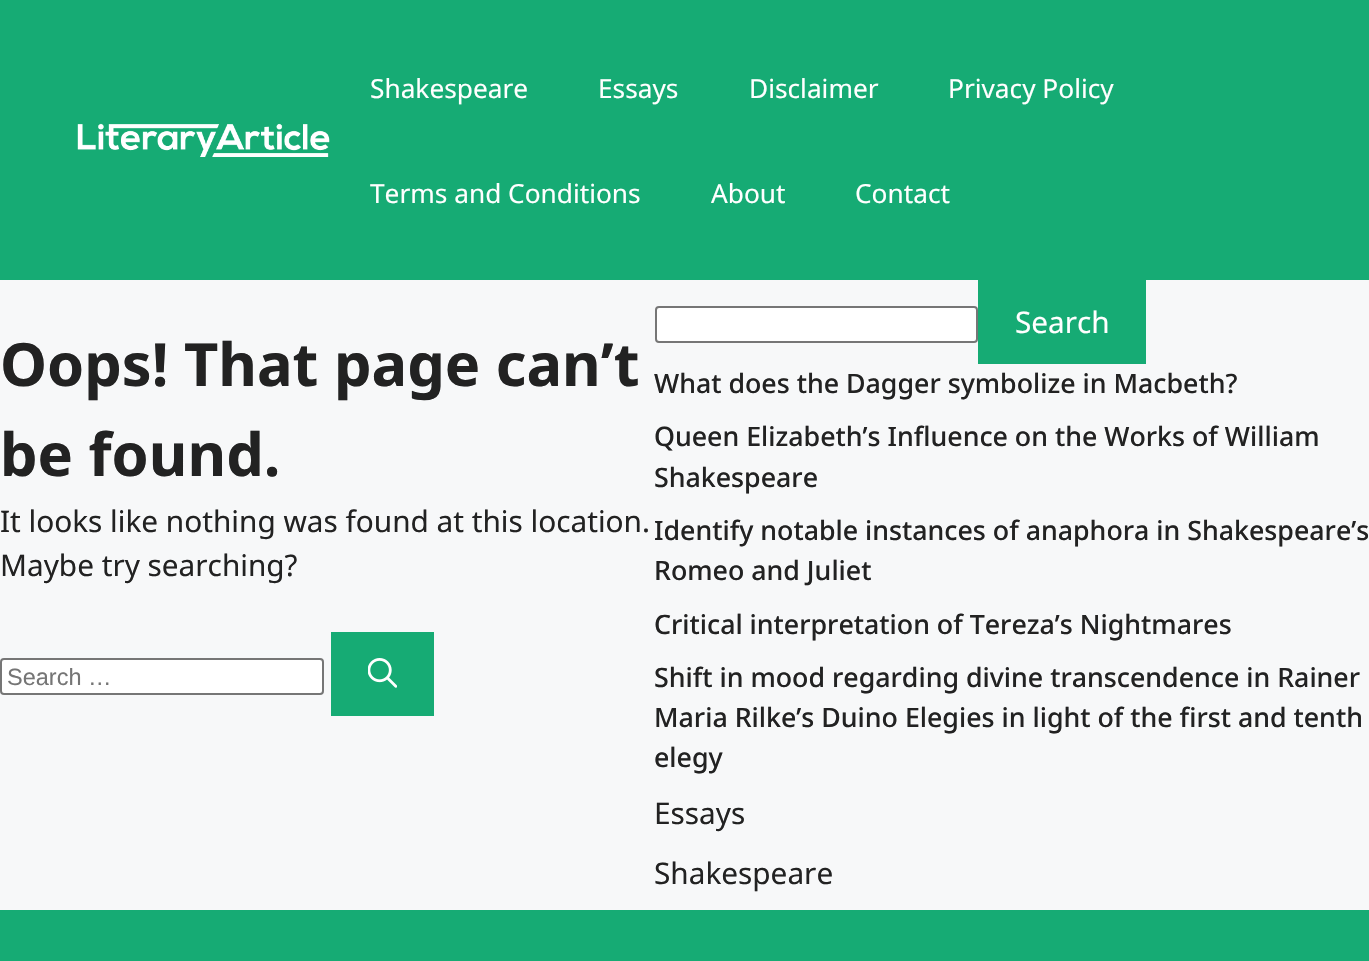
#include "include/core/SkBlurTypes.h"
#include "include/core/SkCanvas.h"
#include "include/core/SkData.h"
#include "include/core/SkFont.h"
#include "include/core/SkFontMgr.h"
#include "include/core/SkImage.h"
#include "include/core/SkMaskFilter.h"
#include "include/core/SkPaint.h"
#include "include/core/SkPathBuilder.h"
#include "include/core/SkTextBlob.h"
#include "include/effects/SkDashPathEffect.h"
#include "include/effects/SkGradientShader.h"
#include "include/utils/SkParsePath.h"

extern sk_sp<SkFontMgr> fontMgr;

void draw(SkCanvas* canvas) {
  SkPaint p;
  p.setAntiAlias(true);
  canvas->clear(SkColorSetRGB(247, 248, 249));
  p.setColor(SkColorSetRGB(22, 171, 116));
  canvas->drawRect(SkRect::MakeLTRB(0, 0, 1369, 280), p);
  canvas->drawImageRect(SkImages::DeferredFromEncodedData(SkData::MakeFromFileName("images/1.png")), SkRect::MakeLTRB(77, 123, 330, 157), SkSamplingOptions());
  p.setColor(SK_ColorWHITE);
  canvas->drawRoundRect(SkRect::MakeLTRB(1, 659, 323, 694), 3, 3, p);
  p.setStyle(SkPaint::kStroke_Style);
  p.setStrokeWidth(2);
  p.setColor(SkColorSetRGB(118, 118, 118));
  canvas->drawRoundRect(SkRect::MakeLTRB(1, 659, 323, 694), 3, 3, p);
  p.setStyle(SkPaint::kFill_Style);
  p.setColor(SkColorSetRGB(22, 171, 116));
  canvas->drawRect(SkRect::MakeLTRB(331, 632, 434, 716), p);
  canvas->drawImageRect(SkImages::DeferredFromEncodedData(SkData::MakeFromFileName("images/2.png")), SkRect::MakeLTRB(368, 658, 397, 688), SkSamplingOptions());
  p.setColor(SK_ColorWHITE);
  canvas->drawRoundRect(SkRect::MakeLTRB(656, 307, 977, 342), 3, 3, p);
  p.setStyle(SkPaint::kStroke_Style);
  p.setColor(SkColorSetRGB(118, 118, 118));
  canvas->drawRoundRect(SkRect::MakeLTRB(656, 307, 977, 342), 3, 3, p);
  p.setStyle(SkPaint::kFill_Style);
  p.setColor(SkColorSetRGB(22, 171, 116));
  canvas->drawRect(SkRect::MakeLTRB(978, 280, 1146, 364), p);
  canvas->drawRect(SkRect::MakeLTRB(0, 910, 1369, 961), p);
  SkFont font1(fontMgr->matchFamilyStyle("Noto Sans", SkFontStyle::Normal()), 26.25f);
  font1.setSubpixel(true);
  p.setColor(SK_ColorWHITE);
  canvas->drawString("Shakespeare", 370, 98, font1, p);
  canvas->drawString("Essays", 598, 98, font1, p);
  canvas->drawString("Disclaimer", 749, 98, font1, p);
  canvas->drawString("Privacy Policy", 948, 98, font1, p);
  canvas->drawString("Terms and Conditions", 370, 203, font1, p);
  canvas->drawString("About", 711, 203, font1, p);
  canvas->drawString("Contact", 855, 203, font1, p);
  SkFont font2(fontMgr->matchFamilyStyle("Noto Sans", SkFontStyle::Bold()), 59.5f);
  font2.setSubpixel(true);
  p.setColor(SkColorSetRGB(34, 34, 34));
  canvas->drawString("Oops! That page can’t", 0, 386, font2, p);
  canvas->drawString("be found.", 0, 476, font2, p);
  SkFont font3(fontMgr->matchFamilyStyle("Noto Sans", SkFontStyle::Normal()), 29.75f);
  font3.setSubpixel(true);
  canvas->drawString("It looks like nothing was found at this location.", 0, 532, font3, p);
  canvas->drawString("Maybe try searching?", 0, 576, font3, p);
  SkFont font4(fontMgr->matchFamilyStyle("Liberation Sans", SkFontStyle::Normal()), 23.5f);
  font4.setSubpixel(true);
  p.setColor(SkColorSetRGB(117, 117, 117));
  canvas->drawString("Search …", 7, 685, font4, p);
  p.setColor(SK_ColorWHITE);
  canvas->drawString("Search", 1015, 333, font3, p);
  SkFont font5(fontMgr->matchFamilyStyle("Noto Sans", SkFontStyle(500, SkFontStyle::kNormal_Width, SkFontStyle::kUpright_Slant)), 26.75f);
  font5.setSubpixel(true);
  p.setColor(SkColorSetRGB(34, 34, 34));
  canvas->drawString("What does the Dagger symbolize in Macbeth?", 654, 393, font5, p);
  canvas->drawString("Queen Elizabeth’s Influence on the Works of William", 654, 446, font5, p);
  canvas->drawString("Shakespeare", 654, 487, font5, p);
  canvas->drawString("Identify notable instances of anaphora in Shakespeare’s", 654, 540, font5, p);
  canvas->drawString("Romeo and Juliet", 654, 580, font5, p);
  canvas->drawString("Critical interpretation of Tereza’s Nightmares", 654, 634, font5, p);
  canvas->drawString("Shift in mood regarding divine transcendence in Rainer", 654, 687, font5, p);
  canvas->drawString("Maria Rilke’s Duino Elegies in light of the first and tenth", 654, 727, font5, p);
  canvas->drawString("elegy", 654, 767, font5, p);
  canvas->drawString("Essays", 654, 824, font3, p);
  canvas->drawString("Shakespeare", 654, 884, font3, p);
}
